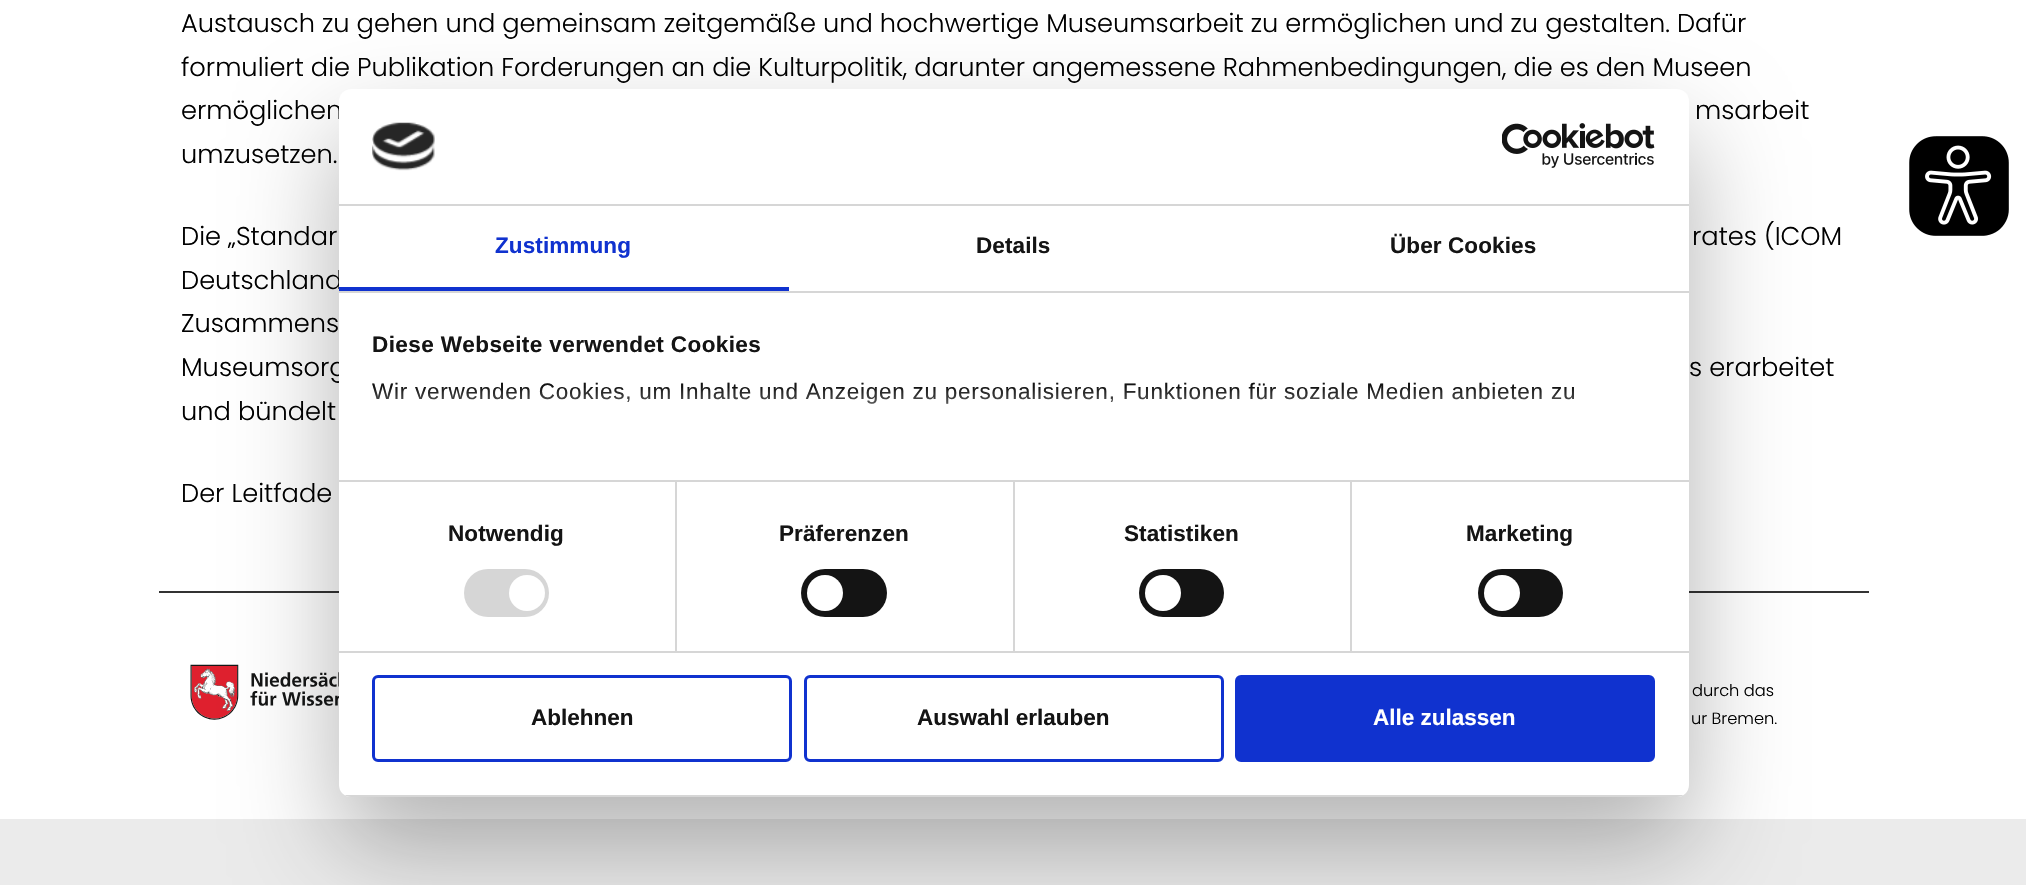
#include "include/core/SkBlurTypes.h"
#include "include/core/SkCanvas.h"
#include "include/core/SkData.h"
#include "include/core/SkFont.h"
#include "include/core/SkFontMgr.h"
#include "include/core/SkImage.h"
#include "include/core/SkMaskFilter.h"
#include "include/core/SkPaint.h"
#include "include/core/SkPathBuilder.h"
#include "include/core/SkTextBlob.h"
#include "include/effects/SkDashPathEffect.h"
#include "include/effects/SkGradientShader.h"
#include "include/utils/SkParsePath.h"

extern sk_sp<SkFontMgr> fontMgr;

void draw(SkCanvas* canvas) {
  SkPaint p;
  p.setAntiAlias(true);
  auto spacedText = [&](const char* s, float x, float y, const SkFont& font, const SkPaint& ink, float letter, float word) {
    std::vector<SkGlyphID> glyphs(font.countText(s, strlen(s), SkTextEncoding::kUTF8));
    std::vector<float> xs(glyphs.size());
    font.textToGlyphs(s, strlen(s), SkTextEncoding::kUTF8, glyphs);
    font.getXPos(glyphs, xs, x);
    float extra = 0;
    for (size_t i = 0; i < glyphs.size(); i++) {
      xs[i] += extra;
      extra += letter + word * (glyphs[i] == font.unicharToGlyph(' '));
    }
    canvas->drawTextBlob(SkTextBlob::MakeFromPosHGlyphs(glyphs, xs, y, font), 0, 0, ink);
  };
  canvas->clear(SK_ColorWHITE);
  p.setColor(SkColorSetRGB(51, 51, 51));
  canvas->drawRect(SkRect::MakeLTRB(159, 591, 1869, 593), p);
  canvas->drawImageRect(SkImages::DeferredFromEncodedData(SkData::MakeFromFileName("images/1.png")), SkRect::MakeLTRB(190, 664, 339, 720), SkSamplingOptions());
  p.setColor(SkColorSetRGB(235, 235, 235));
  canvas->drawRect(SkRect::MakeLTRB(0, 819, 2026, 885), p);
  canvas->drawImageRect(SkImages::DeferredFromEncodedData(SkData::MakeFromFileName("images/2.png")), SkRect::MakeLTRB(1909, 136, 2009, 236), SkSamplingOptions());
  p.setColor(SkColorSetARGB(77, 0, 0, 0));
  p.setMaskFilter(SkMaskFilter::MakeBlur(kNormal_SkBlurStyle, 51));
  canvas->drawRoundRect(SkRect::MakeLTRB(339, 137, 1689, 845), 12, 12, p);
  p.setMaskFilter(nullptr);
  SkFont font1(fontMgr->matchFamilyStyle("Poppins", SkFontStyle(300, SkFontStyle::kNormal_Width, SkFontStyle::kUpright_Slant)), 25.68f);
  font1.setSubpixel(true);
  p.setColor(SK_ColorBLACK);
  canvas->drawString("Austausch zu gehen und gemeinsam zeitgemäße und hochwertige Museumsarbeit zu ermöglichen und zu gestalten. Dafür", 181, 32, font1, p);
  canvas->drawString("formuliert die Publikation Forderungen an die Kulturpolitik, darunter angemessene Rahmenbedingungen, die es den Museen", 181, 76, font1, p);
  canvas->drawString("ermöglichen", 181, 119, font1, p);
  canvas->drawString("msarbeit", 1695, 119, font1, p);
  canvas->drawString("umzusetzen.", 181, 163, font1, p);
  canvas->drawString("Die „Standar", 181, 245, font1, p);
  canvas->drawString("rates (ICOM", 1692, 245, font1, p);
  canvas->drawString("Deutschland", 181, 289, font1, p);
  canvas->drawString("Zusammens", 181, 332, font1, p);
  canvas->drawString("Museumsorg", 181, 376, font1, p);
  canvas->drawString("s erarbeitet", 1689, 376, font1, p);
  canvas->drawString("und bündelt", 181, 420, font1, p);
  canvas->drawString("Der Leitfade", 181, 502, font1, p);
  SkFont font2(fontMgr->matchFamilyStyle("Poppins", SkFontStyle(300, SkFontStyle::kNormal_Width, SkFontStyle::kUpright_Slant)), 16.25f);
  font2.setSubpixel(true);
  canvas->drawString("durch das", 1692, 696, font2, p);
  canvas->drawString("ur Bremen.", 1691, 724, font2, p);
  p.setColor(SK_ColorWHITE);
  canvas->drawRoundRect(SkRect::MakeLTRB(339, 89, 1689, 797), 12, 12, p);
  p.setColor(SkColorSetRGB(214, 214, 214));
  canvas->drawRect(SkRect::MakeLTRB(339, 204, 1689, 206), p);
  canvas->drawImageRect(SkImages::DeferredFromEncodedData(SkData::MakeFromFileName("images/3.png")), SkRect::MakeLTRB(372, 122, 435, 171), SkSamplingOptions());
  canvas->drawImageRect(SkImages::DeferredFromEncodedData(SkData::MakeFromFileName("images/4.png")), SkRect::MakeLTRB(1502, 123, 1655, 168), SkSamplingOptions());
  canvas->drawRect(SkRect::MakeLTRB(339, 291, 1689, 293), p);
  p.setColor(SkColorSetRGB(16, 50, 207));
  canvas->drawRect(SkRect::MakeLTRB(339, 287, 789, 291), p);
  SkFont font3(fontMgr->matchFamilyStyle("Liberation Sans", SkFontStyle::Bold()), 22.5f);
  font3.setSubpixel(true);
  spacedText("Zustimmung", 495, 253, font3, p, 0.1f, 0);
  p.setColor(SkColorSetRGB(20, 20, 20));
  spacedText("Details", 976, 253, font3, p, 0.1f, 0);
  spacedText("Über Cookies", 1390, 253, font3, p, 0.1f, 0);
  p.setColor(SkColorSetRGB(214, 214, 214));
  canvas->drawRect(SkRect::MakeLTRB(339, 480, 1689, 482), p);
  p.setColor(SkColorSetRGB(20, 20, 20));
  spacedText("Diese Webseite verwendet Cookies", 372, 352, font3, p, 0.4f, 0);
  SkFont font4(fontMgr->matchFamilyStyle("Liberation Sans", SkFontStyle::Normal()), 22.5f);
  font4.setSubpixel(true);
  spacedText("Wir verwenden Cookies, um Inhalte und Anzeigen zu personalisieren, Funktionen für soziale Medien anbieten zu", 372, 399, font4, p, 0.75f, 0);
  {
    const SkColor colors[] = {SK_ColorWHITE, SkColorSetARGB(204, 255, 255, 255), SkColorSetARGB(0, 255, 255, 255)};
    const float stops[] = {0, 0.5f, 1};
    const SkPoint ends[] = {{998, 480}, {998, 387}};
    p.setShader(SkGradientShader::MakeLinear(ends, colors, stops, 3, SkTileMode::kClamp));
    p.setAlpha(255);
  }
  canvas->drawRect(SkRect::MakeLTRB(373, 388, 1574, 404), p);
  p.setShader(nullptr);
  p.setColor(SkColorSetRGB(214, 214, 214));
  canvas->drawRect(SkRect::MakeLTRB(339, 651, 1689, 653), p);
  canvas->drawRect(SkRect::MakeLTRB(675, 482, 677, 651), p);
  p.setColor(SkColorSetRGB(20, 20, 20));
  spacedText("Notwendig", 448, 541, font3, p, 0.1f, 0);
  p.setColor(SkColorSetRGB(214, 214, 214));
  canvas->drawRoundRect(SkRect::MakeLTRB(464, 569, 549, 617), 24, 24, p);
  p.setColor(SK_ColorWHITE);
  canvas->drawCircle(527, 593, 18, p);
  p.setColor(SkColorSetRGB(214, 214, 214));
  canvas->drawRect(SkRect::MakeLTRB(1013, 482, 1015, 651), p);
  p.setColor(SkColorSetRGB(20, 20, 20));
  spacedText("Präferenzen", 779, 541, font3, p, 0.1f, 0);
  canvas->drawRoundRect(SkRect::MakeLTRB(801, 569, 887, 617), 24, 24, p);
  p.setColor(SK_ColorWHITE);
  canvas->drawCircle(825, 593, 18, p);
  p.setColor(SkColorSetRGB(214, 214, 214));
  canvas->drawRect(SkRect::MakeLTRB(1350, 482, 1352, 651), p);
  p.setColor(SkColorSetRGB(20, 20, 20));
  spacedText("Statistiken", 1124, 541, font3, p, 0.1f, 0);
  canvas->drawRoundRect(SkRect::MakeLTRB(1139, 569, 1224, 617), 24, 24, p);
  p.setColor(SK_ColorWHITE);
  canvas->drawCircle(1163, 593, 18, p);
  p.setColor(SkColorSetRGB(20, 20, 20));
  spacedText("Marketing", 1466, 541, font3, p, 0.1f, 0);
  canvas->drawRoundRect(SkRect::MakeLTRB(1478, 569, 1563, 617), 24, 24, p);
  p.setColor(SK_ColorWHITE);
  canvas->drawCircle(1502, 593, 18, p);
  canvas->save();
  canvas->clipPath(SkPathBuilder().moveTo(351, 89).lineTo(1677, 89).cubicTo(1683.5f, 89, 1689, 94.5f, 1689, 101).lineTo(1689, 785).cubicTo(1689, 791.5f, 1683.5f, 797, 1677, 797).lineTo(351, 797).cubicTo(344.5f, 797, 339, 791.5f, 339, 785).lineTo(339, 101).cubicTo(339, 94.5f, 344.5f, 89, 351, 89).close().detach(), true);
  p.setColor(SkColorSetRGB(214, 214, 214));
  canvas->drawRect(SkRect::MakeLTRB(339, 795, 1689, 797), p);
  canvas->restore();
  p.setStyle(SkPaint::kStroke_Style);
  p.setStrokeWidth(3);
  p.setColor(SkColorSetRGB(16, 50, 207));
  canvas->drawRoundRect(SkRect::MakeLTRB(373.5f, 676.5f, 790.5f, 760.5f), 4.5f, 4.5f, p);
  p.setStyle(SkPaint::kFill_Style);
  p.setColor(SkColorSetRGB(20, 20, 20));
  canvas->drawString("Ablehnen", 531, 725, font3, p);
  p.setStyle(SkPaint::kStroke_Style);
  p.setColor(SkColorSetRGB(16, 50, 207));
  canvas->drawRoundRect(SkRect::MakeLTRB(805.5f, 676.5f, 1222.5f, 760.5f), 4.5f, 4.5f, p);
  p.setStyle(SkPaint::kFill_Style);
  p.setColor(SkColorSetRGB(20, 20, 20));
  canvas->drawString("Auswahl erlauben", 917, 725, font3, p);
  p.setColor(SkColorSetRGB(16, 50, 207));
  canvas->drawRoundRect(SkRect::MakeLTRB(1236.5f, 676.5f, 1653.5f, 760.5f), 4.5f, 4.5f, p);
  p.setStyle(SkPaint::kStroke_Style);
  canvas->drawRoundRect(SkRect::MakeLTRB(1236.5f, 676.5f, 1653.5f, 760.5f), 4.5f, 4.5f, p);
  p.setStyle(SkPaint::kFill_Style);
  p.setColor(SK_ColorWHITE);
  canvas->drawString("Alle zulassen", 1373, 725, font3, p);
}
